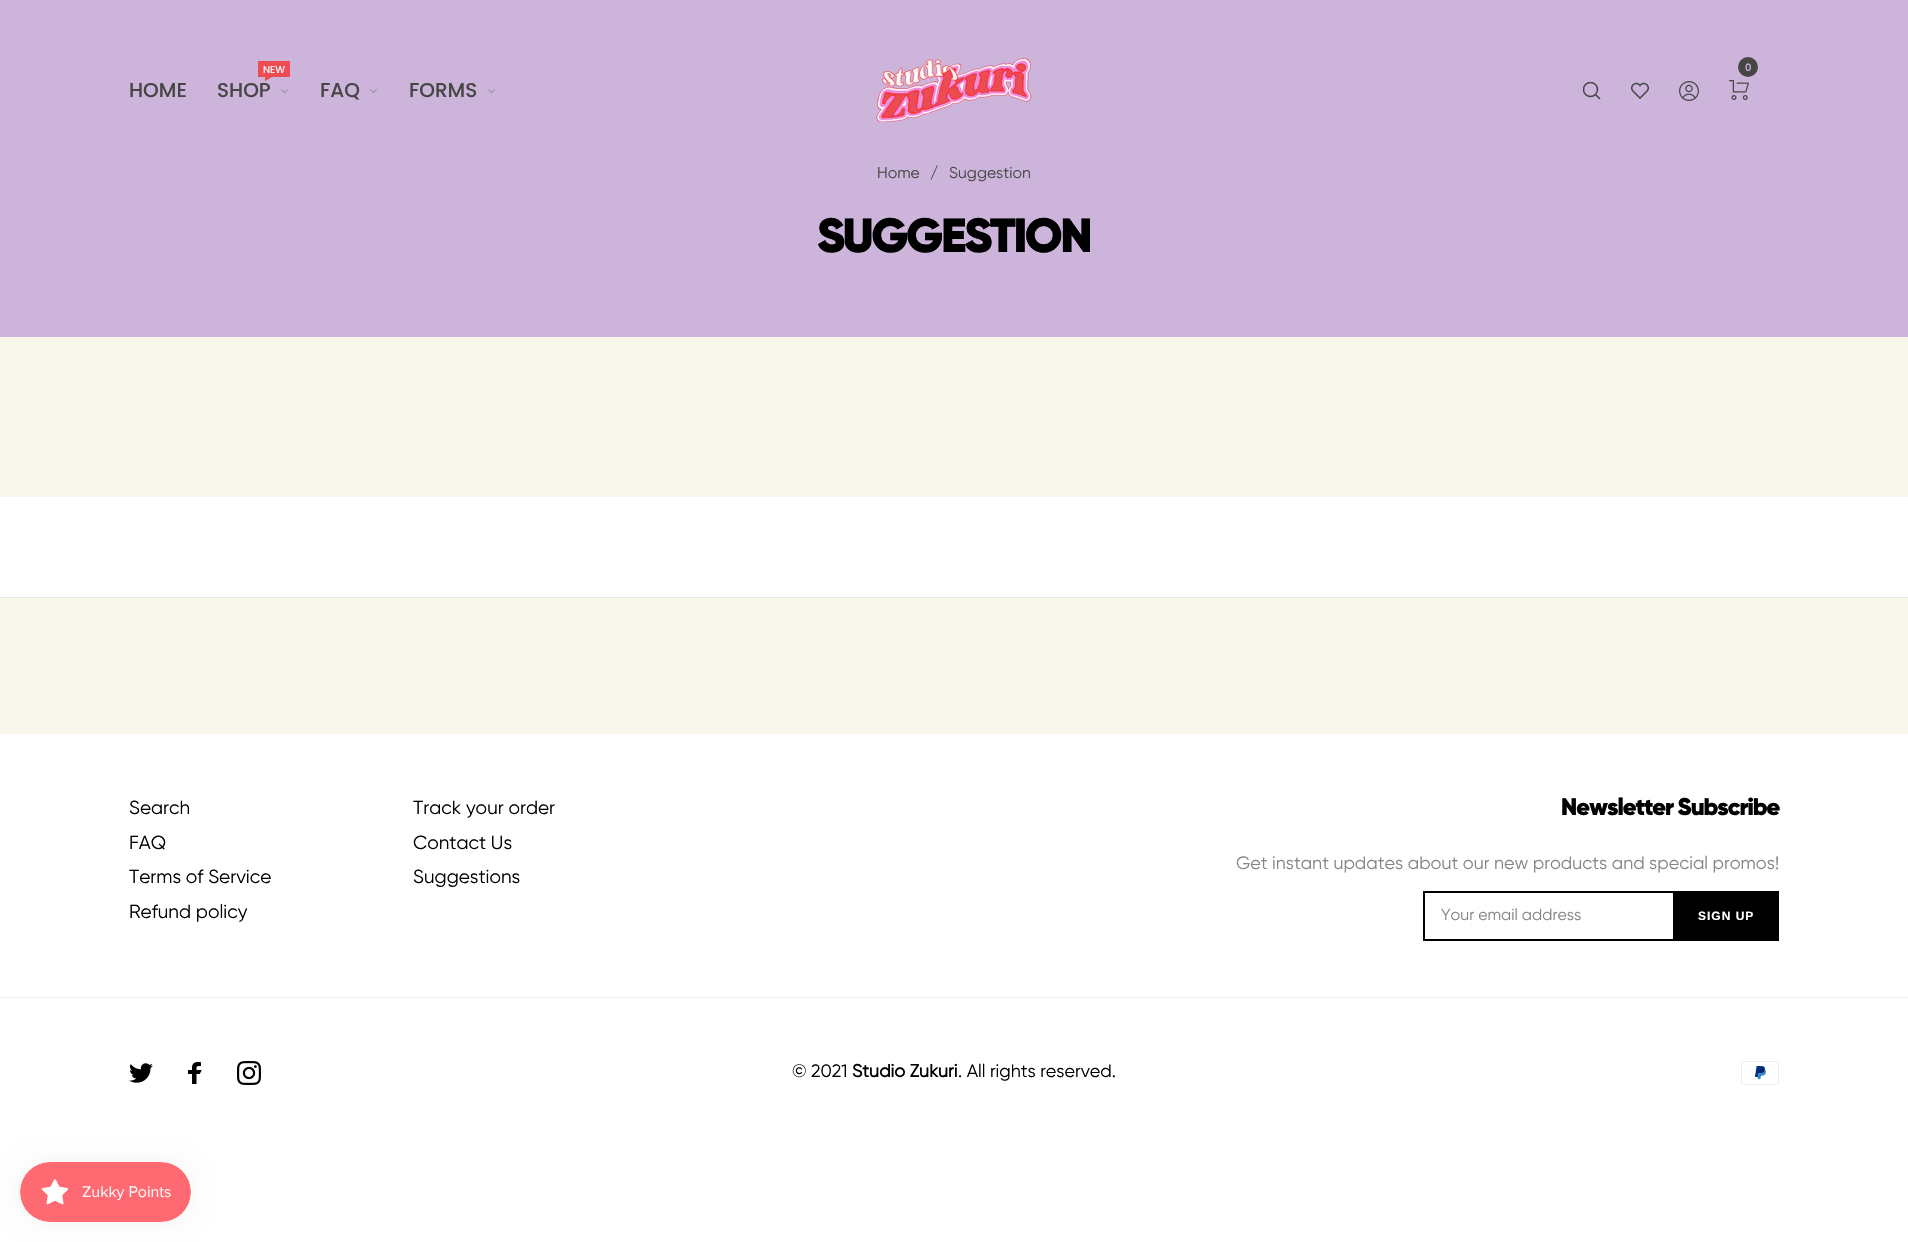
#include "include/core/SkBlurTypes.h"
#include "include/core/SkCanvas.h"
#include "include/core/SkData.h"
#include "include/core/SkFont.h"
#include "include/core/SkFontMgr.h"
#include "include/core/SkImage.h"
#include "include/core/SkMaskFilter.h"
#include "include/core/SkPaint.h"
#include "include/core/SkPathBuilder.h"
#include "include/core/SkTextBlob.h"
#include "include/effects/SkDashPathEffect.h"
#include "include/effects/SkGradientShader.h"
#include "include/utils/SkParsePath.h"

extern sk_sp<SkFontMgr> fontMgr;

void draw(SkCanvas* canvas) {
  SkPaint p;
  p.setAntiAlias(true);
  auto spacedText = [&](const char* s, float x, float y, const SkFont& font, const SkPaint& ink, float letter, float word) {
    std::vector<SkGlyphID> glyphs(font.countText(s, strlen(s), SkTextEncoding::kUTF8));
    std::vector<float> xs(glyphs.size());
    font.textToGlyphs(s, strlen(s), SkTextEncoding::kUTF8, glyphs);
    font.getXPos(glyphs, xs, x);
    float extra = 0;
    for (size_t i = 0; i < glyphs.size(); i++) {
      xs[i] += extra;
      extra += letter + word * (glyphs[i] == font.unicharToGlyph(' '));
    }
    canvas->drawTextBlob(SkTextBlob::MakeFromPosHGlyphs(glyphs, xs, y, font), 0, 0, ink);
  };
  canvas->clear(SkColorSetRGB(249, 246, 235));
  p.setColor(SkColorSetRGB(205, 180, 219));
  canvas->drawRect(SkRect::MakeLTRB(0, 0, 1908, 337), p);
  p.setColor(SkColorSetRGB(237, 76, 82));
  canvas->drawRect(SkRect::MakeLTRB(258, 61, 290, 77), p);
  canvas->drawPath(SkPathBuilder().moveTo(265, 77).lineTo(272, 77).lineTo(265, 81).close().detach(), p);
  canvas->drawImageRect(SkImages::DeferredFromEncodedData(SkData::MakeFromFileName("images/1.png")), SkRect::MakeLTRB(281, 89, 288, 93), SkSamplingOptions());
  canvas->drawImageRect(SkImages::DeferredFromEncodedData(SkData::MakeFromFileName("images/1.png")), SkRect::MakeLTRB(370, 89, 377, 93), SkSamplingOptions());
  canvas->drawImageRect(SkImages::DeferredFromEncodedData(SkData::MakeFromFileName("images/1.png")), SkRect::MakeLTRB(488, 89, 495, 93), SkSamplingOptions());
  canvas->drawImageRect(SkImages::DeferredFromEncodedData(SkData::MakeFromFileName("images/2.png")), SkRect::MakeLTRB(876, 58, 1032, 123), SkSamplingOptions());
  p.setColor(SkColorSetRGB(70, 70, 70));
  canvas->drawCircle(1748, 67, 10, p);
  canvas->drawImageRect(SkImages::DeferredFromEncodedData(SkData::MakeFromFileName("images/3.png")), SkRect::MakeLTRB(1729, 80, 1749, 100), SkSamplingOptions());
  p.setStyle(SkPaint::kStroke_Style);
  p.setStrokeWidth(1.5f);
  p.setStrokeCap(SkPaint::kSquare_Cap);
  canvas->drawPath(SkPathBuilder().moveTo(1599.5f, 98.5f).lineTo(1595.5f, 94.5f).detach(), p);
  canvas->save();
  canvas->clipRect(SkRect::MakeLTRB(1583, 82, 1601, 100));
  p.setStrokeCap(SkPaint::kButt_Cap);
  canvas->drawCircle(1590.5f, 89.5f, 7, p);
  canvas->restore();
  canvas->drawImageRect(SkImages::DeferredFromEncodedData(SkData::MakeFromFileName("images/4.png")), SkRect::MakeLTRB(1631, 82, 1649, 99), SkSamplingOptions());
  canvas->drawImageRect(SkImages::DeferredFromEncodedData(SkData::MakeFromFileName("images/5.png")), SkRect::MakeLTRB(1679, 81, 1699, 101), SkSamplingOptions());
  p.setStyle(SkPaint::kFill_Style);
  p.setColor(SkColorSetRGB(231, 231, 231));
  canvas->drawRect(SkRect::MakeLTRB(0, 597, 1908, 598), p);
  p.setColor(SK_ColorWHITE);
  canvas->drawRect(SkRect::MakeLTRB(0, 497, 1908, 597), p);
  canvas->drawRect(SkRect::MakeLTRB(0, 734, 1908, 997), p);
  p.setColor(SK_ColorBLACK);
  canvas->drawRect(SkRect::MakeLTRB(1423, 891, 1673, 893), p);
  canvas->drawRect(SkRect::MakeLTRB(1423, 939, 1673, 941), p);
  canvas->drawRect(SkRect::MakeLTRB(1423, 891, 1425, 941), p);
  canvas->drawRect(SkRect::MakeLTRB(1673, 891, 1779, 941), p);
  p.setColor(SK_ColorWHITE);
  canvas->drawRect(SkRect::MakeLTRB(0, 998, 1908, 1242), p);
  p.setColor(SkColorSetRGB(238, 238, 238));
  canvas->drawRect(SkRect::MakeLTRB(0, 997, 1908, 998), p);
  canvas->drawImageRect(SkImages::DeferredFromEncodedData(SkData::MakeFromFileName("images/6.png")), SkRect::MakeLTRB(129, 1063, 153, 1083), SkSamplingOptions());
  canvas->drawImageRect(SkImages::DeferredFromEncodedData(SkData::MakeFromFileName("images/7.png")), SkRect::MakeLTRB(188, 1062, 202, 1084), SkSamplingOptions());
  canvas->drawImageRect(SkImages::DeferredFromEncodedData(SkData::MakeFromFileName("images/8.png")), SkRect::MakeLTRB(237, 1061, 261, 1085), SkSamplingOptions());
  canvas->drawImageRect(SkImages::DeferredFromEncodedData(SkData::MakeFromFileName("images/9.png")), SkRect::MakeLTRB(1741, 1061, 1779, 1085), SkSamplingOptions());
  p.setColor(SkColorSetARGB(13, 0, 0, 0));
  p.setMaskFilter(SkMaskFilter::MakeBlur(kNormal_SkBlurStyle, 12.5f));
  canvas->drawRoundRect(SkRect::MakeLTRB(20, 1162, 191, 1222), 30, 30, p);
  p.setMaskFilter(nullptr);
  canvas->drawImageRect(SkImages::DeferredFromEncodedData(SkData::MakeFromFileName("images/10.png")), SkRect::MakeLTRB(20, 1162, 191, 1222), SkSamplingOptions());
  SkFont font1(fontMgr->matchFamilyStyle("Poppins", SkFontStyle(500, SkFontStyle::kNormal_Width, SkFontStyle::kUpright_Slant)), 20);
  font1.setSubpixel(true);
  p.setColor(SkColorSetRGB(70, 70, 70));
  canvas->drawString("HOME", 129, 97, font1, p);
  SkFont font2(fontMgr->matchFamilyStyle("Poppins", SkFontStyle::Normal()), 10);
  font2.setSubpixel(true);
  p.setColor(SK_ColorWHITE);
  canvas->drawString("NEW", 263, 73, font2, p);
  p.setColor(SkColorSetRGB(70, 70, 70));
  canvas->drawString("SHOP", 217, 97, font1, p);
  canvas->drawString("FAQ", 320, 97, font1, p);
  canvas->drawString("FORMS", 409, 97, font1, p);
  SkFont font3(fontMgr->matchFamilyStyle("Poppins", SkFontStyle(500, SkFontStyle::kNormal_Width, SkFontStyle::kUpright_Slant)), 10);
  font3.setSubpixel(true);
  p.setColor(SkColorSetRGB(205, 180, 219));
  canvas->drawString("0", 1745, 71, font3, p);
  SkFont font4(fontMgr->matchFamilyStyle("Gilroy", SkFontStyle::Normal()), 15.75f);
  font4.setSubpixel(true);
  p.setColor(SkColorSetRGB(70, 70, 70));
  canvas->drawString("Home", 877, 178, font4, p);
  canvas->drawString("/", 930, 178, font4, p);
  canvas->drawString("Suggestion", 949, 178, font4, p);
  SkFont font5(fontMgr->matchFamilyStyle("Gilroy", SkFontStyle(900, SkFontStyle::kNormal_Width, SkFontStyle::kUpright_Slant)), 48);
  font5.setSubpixel(true);
  p.setColor(SK_ColorBLACK);
  spacedText("SUGGESTION", 817, 252, font5, p, -2.5f, 0);
  SkFont font6(fontMgr->matchFamilyStyle("Gilroy", SkFontStyle::Normal()), 19);
  font6.setSubpixel(true);
  canvas->drawString("Search", 129, 814, font6, p);
  canvas->drawString("FAQ", 129, 849, font6, p);
  canvas->drawString("Terms of Service", 129, 883, font6, p);
  canvas->drawString("Refund policy", 129, 918, font6, p);
  canvas->drawString("Track your order", 413, 814, font6, p);
  canvas->drawString("Contact Us", 413, 849, font6, p);
  canvas->drawString("Suggestions", 413, 883, font6, p);
  SkFont font7(fontMgr->matchFamilyStyle("Gilroy", SkFontStyle(900, SkFontStyle::kNormal_Width, SkFontStyle::kUpright_Slant)), 24);
  font7.setSubpixel(true);
  spacedText("Newsletter Subscribe", 1561, 815, font7, p, -1, 0);
  SkFont font8(fontMgr->matchFamilyStyle("Gilroy", SkFontStyle::Normal()), 18);
  font8.setSubpixel(true);
  p.setColor(SkColorSetRGB(133, 133, 133));
  canvas->drawString("Get instant updates about our new products and special promos!", 1236, 869, font8, p);
  SkFont font9(fontMgr->matchFamilyStyle("Gilroy", SkFontStyle::Normal()), 16);
  font9.setSubpixel(true);
  canvas->drawString("Your email address", 1441, 920, font9, p);
  SkFont font10(fontMgr->matchFamilyStyle("Liberation Sans", SkFontStyle::Bold()), 12);
  font10.setSubpixel(true);
  p.setColor(SK_ColorWHITE);
  spacedText("SIGN UP", 1698, 920, font10, p, 1, 0);
  p.setColor(SK_ColorBLACK);
  canvas->drawString("© 2021", 792, 1077, font8, p);
  SkFont font11(fontMgr->matchFamilyStyle("Gilroy", SkFontStyle::Bold()), 18);
  font11.setSubpixel(true);
  canvas->drawString("Studio Zukuri", 852, 1077, font11, p);
  canvas->drawString(". All rights reserved.", 958, 1077, font8, p);
}
